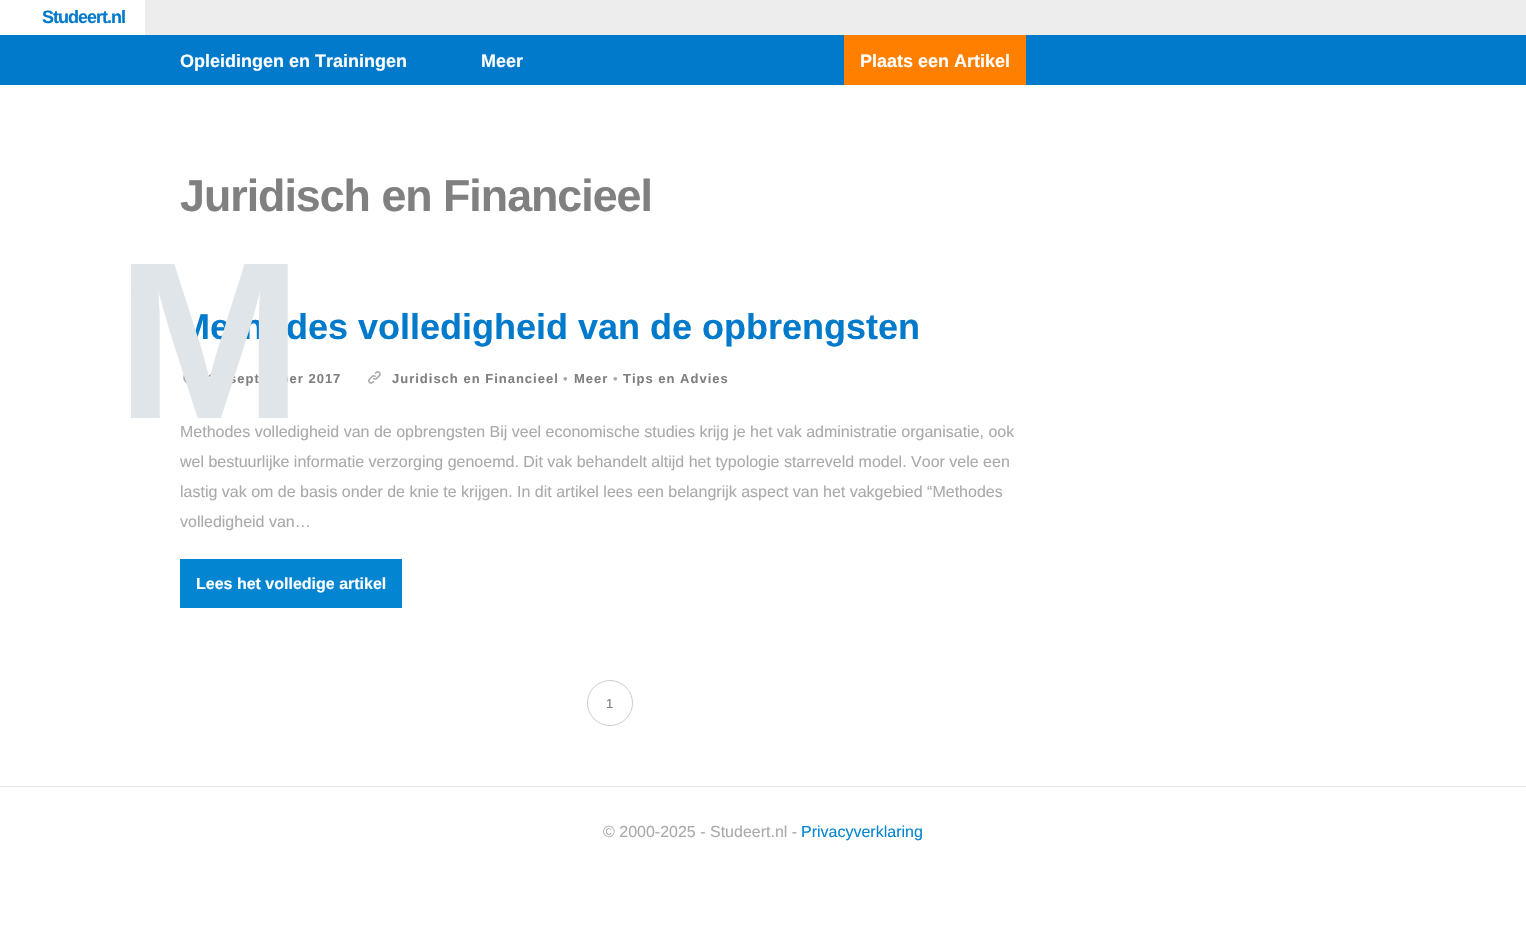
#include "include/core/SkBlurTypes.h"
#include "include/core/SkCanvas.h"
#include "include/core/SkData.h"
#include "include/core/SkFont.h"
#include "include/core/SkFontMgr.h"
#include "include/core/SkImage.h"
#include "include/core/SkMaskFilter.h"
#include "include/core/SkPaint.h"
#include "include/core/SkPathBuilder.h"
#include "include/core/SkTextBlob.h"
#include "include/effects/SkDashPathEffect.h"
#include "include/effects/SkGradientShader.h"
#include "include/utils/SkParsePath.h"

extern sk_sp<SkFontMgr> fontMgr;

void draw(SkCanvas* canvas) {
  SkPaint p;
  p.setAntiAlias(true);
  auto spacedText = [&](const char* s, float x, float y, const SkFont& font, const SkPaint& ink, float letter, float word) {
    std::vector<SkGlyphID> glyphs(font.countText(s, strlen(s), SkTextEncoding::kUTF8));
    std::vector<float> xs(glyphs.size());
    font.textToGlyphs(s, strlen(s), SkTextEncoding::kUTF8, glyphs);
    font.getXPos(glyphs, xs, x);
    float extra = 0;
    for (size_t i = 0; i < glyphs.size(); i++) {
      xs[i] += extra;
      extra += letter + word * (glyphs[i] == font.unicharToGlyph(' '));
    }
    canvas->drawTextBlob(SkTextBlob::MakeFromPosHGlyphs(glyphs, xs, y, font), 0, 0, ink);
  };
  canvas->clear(SK_ColorWHITE);
  p.setColor(SkColorSetRGB(1, 122, 203));
  canvas->drawRect(SkRect::MakeLTRB(0, 35, 1526, 85), p);
  p.setColor(SkColorSetRGB(237, 237, 237));
  canvas->drawRect(SkRect::MakeLTRB(145, 0, 1526, 35), p);
  p.setColor(SkColorSetRGB(255, 128, 0));
  canvas->drawRect(SkRect::MakeLTRB(844, 35, 1026, 85), p);
  canvas->drawImageRect(SkImages::DeferredFromEncodedData(SkData::MakeFromFileName("images/1.png")), SkRect::MakeLTRB(183, 370, 198, 385), SkSamplingOptions());
  canvas->drawImageRect(SkImages::DeferredFromEncodedData(SkData::MakeFromFileName("images/2.png")), SkRect::MakeLTRB(368, 371, 381, 384), SkSamplingOptions());
  p.setColor(SkColorSetRGB(3, 133, 210));
  canvas->drawRect(SkRect::MakeLTRB(180, 559, 402, 608), p);
  p.setStyle(SkPaint::kStroke_Style);
  p.setStrokeWidth(1);
  p.setColor(SkColorSetRGB(204, 204, 204));
  canvas->drawCircle(610, 703, 22.5f, p);
  p.setStyle(SkPaint::kFill_Style);
  p.setColor(SkColorSetRGB(230, 230, 230));
  canvas->drawRect(SkRect::MakeLTRB(0, 786, 1526, 787), p);
  SkFont font1(fontMgr->matchFamilyStyle("Liberation Sans", SkFontStyle::Bold()), 18);
  font1.setSubpixel(true);
  p.setColor(SkColorSetRGB(1, 122, 203));
  spacedText("Studeert.nl", 42, 23, font1, p, -1, 0);
  p.setColor(SK_ColorWHITE);
  canvas->drawString("Opleidingen en Trainingen", 180, 67, font1, p);
  canvas->drawString("Meer", 481, 67, font1, p);
  canvas->drawString("Plaats een Artikel", 860, 67, font1, p);
  SkFont font2(fontMgr->matchFamilyStyle("Liberation Sans", SkFontStyle::Bold()), 44.75f);
  font2.setSubpixel(true);
  p.setColor(SkColorSetRGB(128, 128, 128));
  spacedText("Juridisch en Financieel", 180, 211, font2, p, -1, 0);
  SkFont font3(fontMgr->matchFamilyStyle("Liberation Sans", SkFontStyle::Bold()), 13);
  font3.setSubpixel(true);
  spacedText("13 september 2017", 208, 383, font3, p, 1, 0);
  spacedText("Juridisch en Financieel", 392, 383, font3, p, 1, 0);
  SkFont font4(fontMgr->matchFamilyStyle("Liberation Sans", SkFontStyle::Normal()), 13);
  font4.setSubpixel(true);
  p.setColor(SkColorSetRGB(170, 170, 170));
  spacedText("•", 563, 383, font4, p, 1, 0);
  p.setColor(SkColorSetRGB(128, 128, 128));
  spacedText("Meer", 574, 383, font3, p, 1, 0);
  p.setColor(SkColorSetRGB(170, 170, 170));
  spacedText("•", 613, 383, font4, p, 1, 0);
  p.setColor(SkColorSetRGB(128, 128, 128));
  spacedText("Tips en Advies", 623, 383, font3, p, 1, 0);
  SkFont font5(fontMgr->matchFamilyStyle("Liberation Sans", SkFontStyle::Bold()), 36);
  font5.setSubpixel(true);
  p.setColor(SkColorSetRGB(1, 122, 203));
  canvas->drawString("Methodes volledigheid van de opbrengsten", 180, 339, font5, p);
  SkFont font6(fontMgr->matchFamilyStyle("Liberation Sans", SkFontStyle::Bold()), 224);
  font6.setSubpixel(true);
  p.setColor(SkColorSetRGB(223, 229, 233));
  spacedText("M", 116, 418, font6, p, 1, 0);
  SkFont font7(fontMgr->matchFamilyStyle("Liberation Sans", SkFontStyle::Normal()), 16);
  font7.setSubpixel(true);
  p.setColor(SkColorSetRGB(170, 170, 170));
  canvas->drawString("Methodes volledigheid van de opbrengsten Bij veel economische studies krijg je het vak administratie organisatie, ook", 180, 437, font7, p);
  canvas->drawString("wel bestuurlijke informatie verzorging genoemd. Dit vak behandelt altijd het typologie starreveld model. Voor vele een", 180, 467, font7, p);
  canvas->drawString("lastig vak om de basis onder de knie te krijgen. In dit artikel lees een belangrijk aspect van het vakgebied “Methodes", 180, 497, font7, p);
  canvas->drawString("volledigheid van…", 180, 527, font7, p);
  SkFont font8(fontMgr->matchFamilyStyle("Liberation Sans", SkFontStyle::Bold()), 16);
  font8.setSubpixel(true);
  p.setColor(SK_ColorWHITE);
  canvas->drawString("Lees het volledige artikel", 196, 589, font8, p);
  p.setColor(SkColorSetRGB(128, 128, 128));
  spacedText("1", 606, 708, font4, p, 1, 0);
  p.setColor(SkColorSetRGB(170, 170, 170));
  canvas->drawString("© 2000-2025 - Studeert.nl -", 603, 837, font7, p);
  p.setColor(SkColorSetRGB(3, 133, 210));
  canvas->drawString("Privacyverklaring", 801, 837, font7, p);
}
